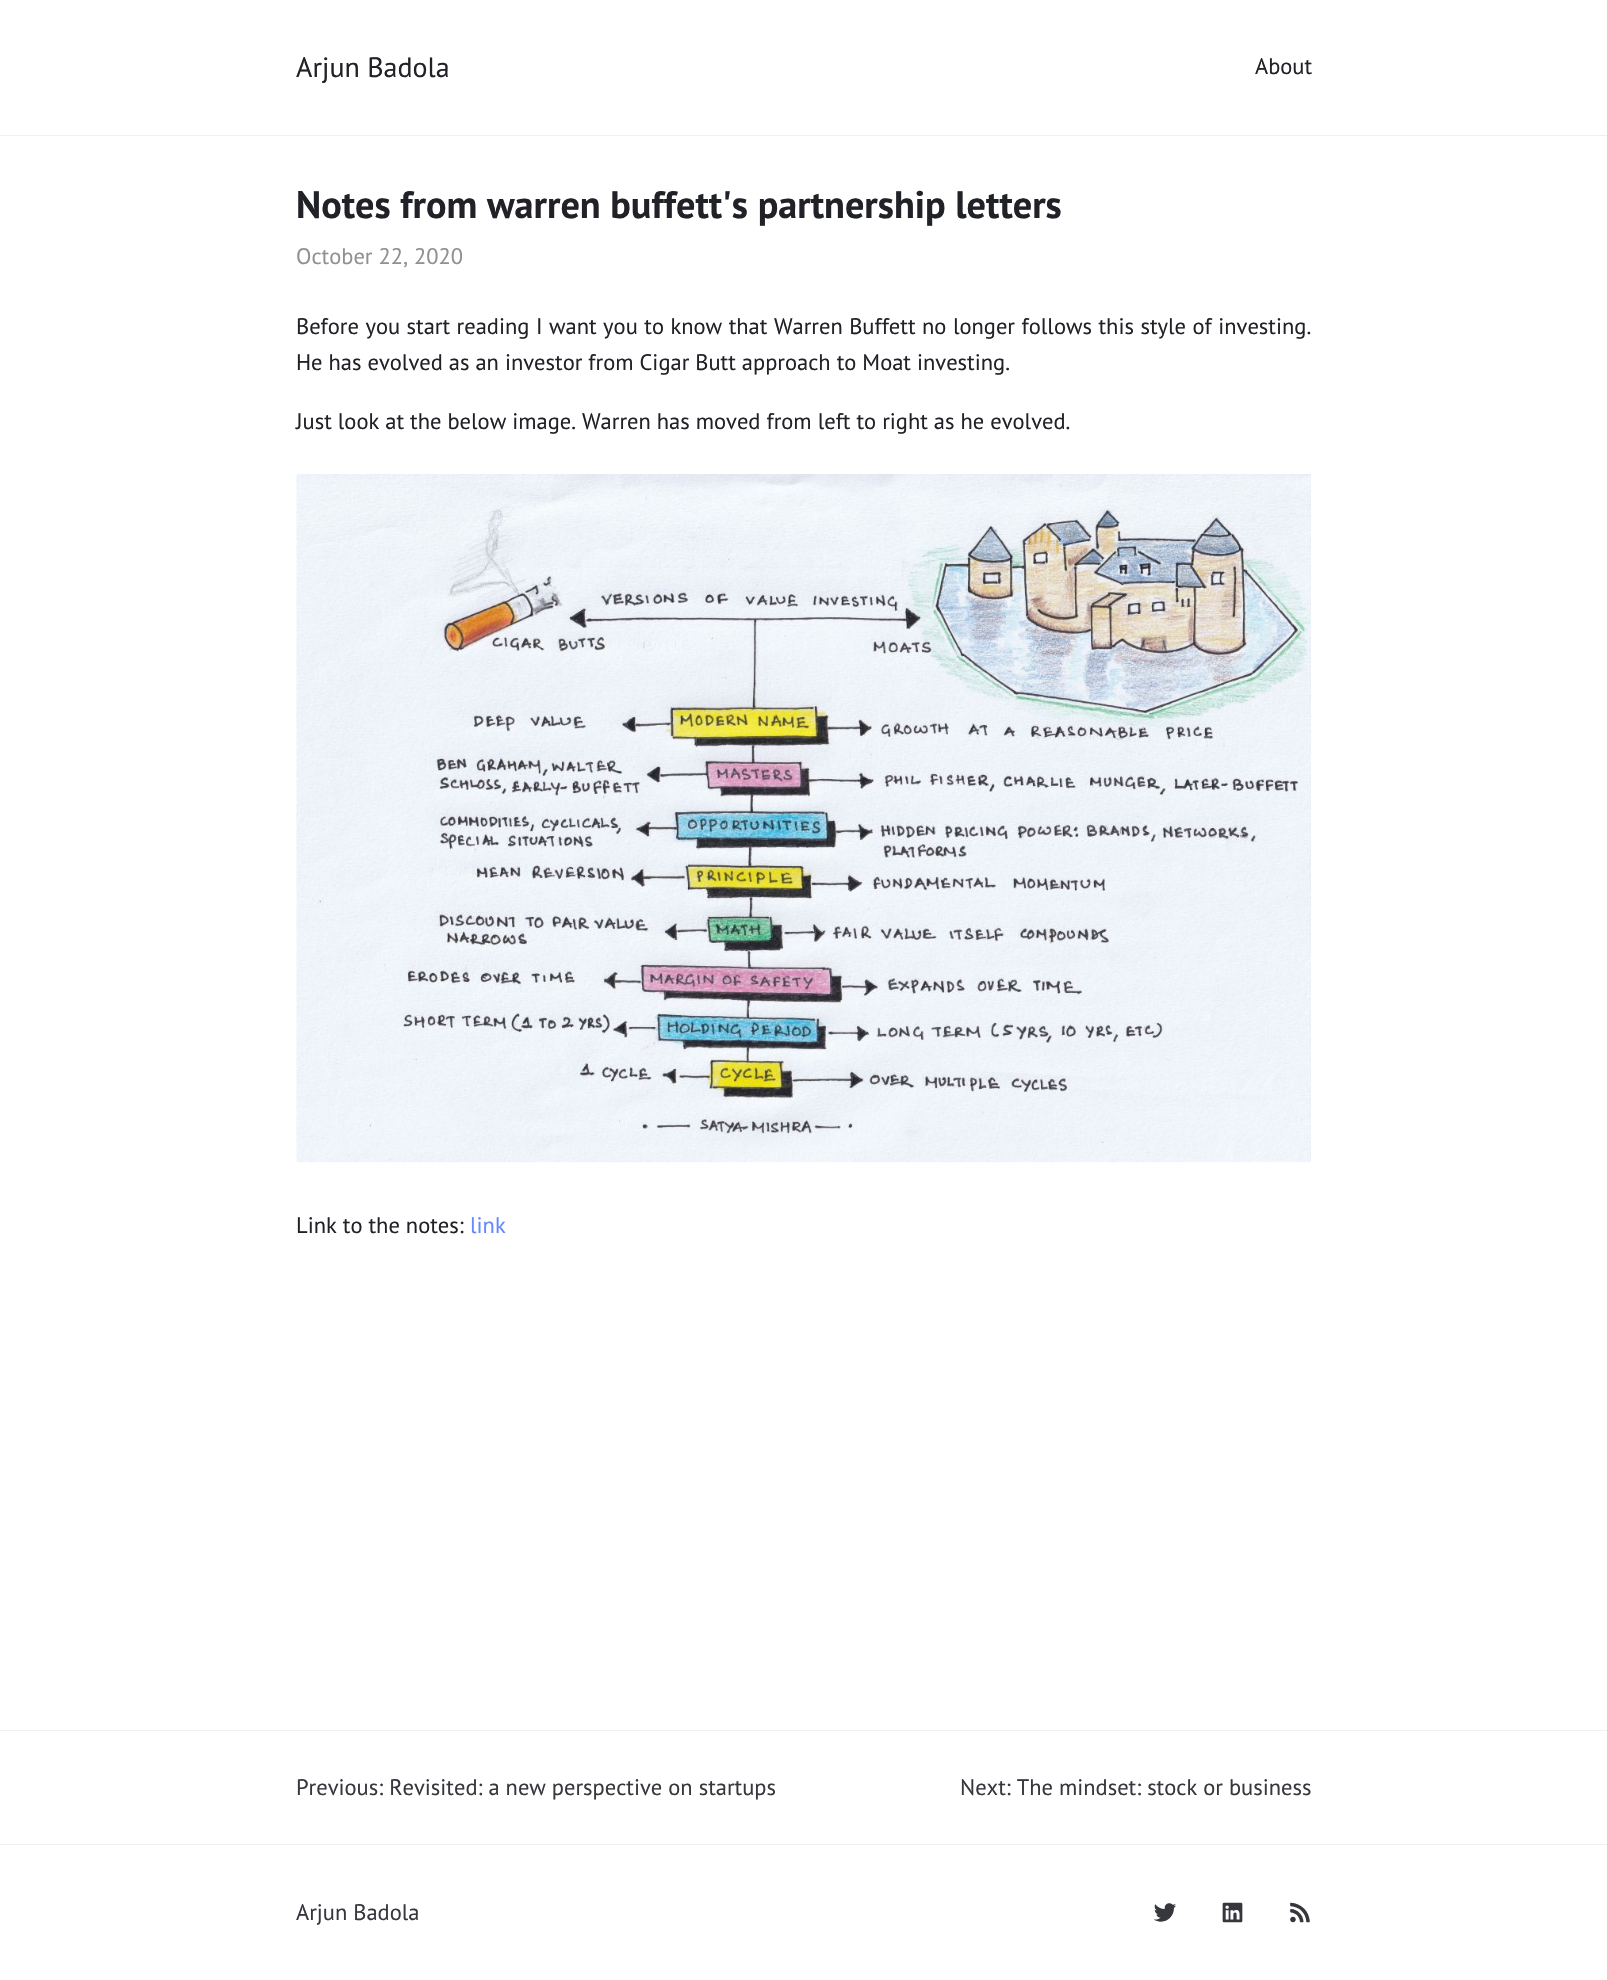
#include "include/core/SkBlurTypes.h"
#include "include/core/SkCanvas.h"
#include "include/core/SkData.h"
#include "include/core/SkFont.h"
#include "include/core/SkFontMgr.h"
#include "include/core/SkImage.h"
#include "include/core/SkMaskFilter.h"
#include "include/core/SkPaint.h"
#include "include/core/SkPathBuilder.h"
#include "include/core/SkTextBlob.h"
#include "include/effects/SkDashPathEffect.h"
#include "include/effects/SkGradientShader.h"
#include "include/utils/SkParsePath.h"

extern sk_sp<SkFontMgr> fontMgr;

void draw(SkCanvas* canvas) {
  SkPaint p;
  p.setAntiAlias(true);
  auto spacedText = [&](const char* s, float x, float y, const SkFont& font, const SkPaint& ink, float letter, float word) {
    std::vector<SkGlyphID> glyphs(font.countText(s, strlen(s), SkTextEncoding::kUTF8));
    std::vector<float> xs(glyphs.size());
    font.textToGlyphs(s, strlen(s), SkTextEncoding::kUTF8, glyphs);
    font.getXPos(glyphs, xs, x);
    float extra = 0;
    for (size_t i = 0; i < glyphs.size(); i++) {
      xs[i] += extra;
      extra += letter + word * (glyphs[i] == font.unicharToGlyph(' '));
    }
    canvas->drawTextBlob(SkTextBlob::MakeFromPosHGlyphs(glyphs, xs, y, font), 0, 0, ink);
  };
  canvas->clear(SK_ColorWHITE);
  p.setColor(SkColorSetRGB(239, 240, 240));
  canvas->drawRect(SkRect::MakeLTRB(0, 135, 1607, 136), p);
  canvas->drawImageRect(SkImages::DeferredFromEncodedData(SkData::MakeFromFileName("images/1.png")), SkRect::MakeLTRB(296, 474, 1311, 1163), SkSamplingOptions());
  p.setColor(SkColorSetRGB(241, 241, 242));
  canvas->drawRect(SkRect::MakeLTRB(0, 1730, 1607, 1731), p);
  canvas->drawRect(SkRect::MakeLTRB(0, 1844, 1607, 1845), p);
  canvas->drawImageRect(SkImages::DeferredFromEncodedData(SkData::MakeFromFileName("images/2.png")), SkRect::MakeLTRB(1154, 1903, 1176, 1922), SkSamplingOptions());
  canvas->drawImageRect(SkImages::DeferredFromEncodedData(SkData::MakeFromFileName("images/3.png")), SkRect::MakeLTRB(1222, 1902, 1243, 1923), SkSamplingOptions());
  canvas->drawImageRect(SkImages::DeferredFromEncodedData(SkData::MakeFromFileName("images/4.png")), SkRect::MakeLTRB(1290, 1902, 1310, 1923), SkSamplingOptions());
  SkFont font1(fontMgr->matchFamilyStyle("PT Sans", SkFontStyle::Normal()), 28);
  font1.setSubpixel(true);
  p.setColor(SkColorSetRGB(33, 34, 40));
  canvas->drawString("Arjun Badola", 296, 77, font1, p);
  SkFont font2(fontMgr->matchFamilyStyle("PT Sans", SkFontStyle::Normal()), 22.5f);
  font2.setSubpixel(true);
  canvas->drawString("About", 1255, 74, font2, p);
  SkFont font3(fontMgr->matchFamilyStyle("PT Sans", SkFontStyle::Bold()), 38.25f);
  font3.setSubpixel(true);
  canvas->drawString("Notes from warren buffett's partnership letters", 296, 218, font3, p);
  p.setColor(SkColorSetRGB(144, 145, 148));
  canvas->drawString("October 22, 2020", 296, 264, font2, p);
  p.setColor(SkColorSetRGB(33, 34, 40));
  spacedText("Before you start reading I want you to know that Warren Buffett no longer follows this style of investing.", 296, 334, font2, p, 0, 0.5f);
  canvas->drawString("He has evolved as an investor from Cigar Butt approach to Moat investing.", 296, 370, font2, p);
  canvas->drawString("Just look at the below image. Warren has moved from left to right as he evolved.", 296, 429, font2, p);
  canvas->drawString("Link to the notes:", 296, 1233, font2, p);
  p.setColor(SkColorSetRGB(102, 136, 255));
  canvas->drawString("link", 470, 1233, font2, p);
  p.setColor(SkColorSetRGB(55, 56, 62));
  canvas->drawString("Previous: Revisited: a new perspective on startups", 296, 1795, font2, p);
  canvas->drawString("Next: The mindset: stock or business", 960, 1795, font2, p);
  canvas->drawString("Arjun Badola", 296, 1920, font2, p);
}
